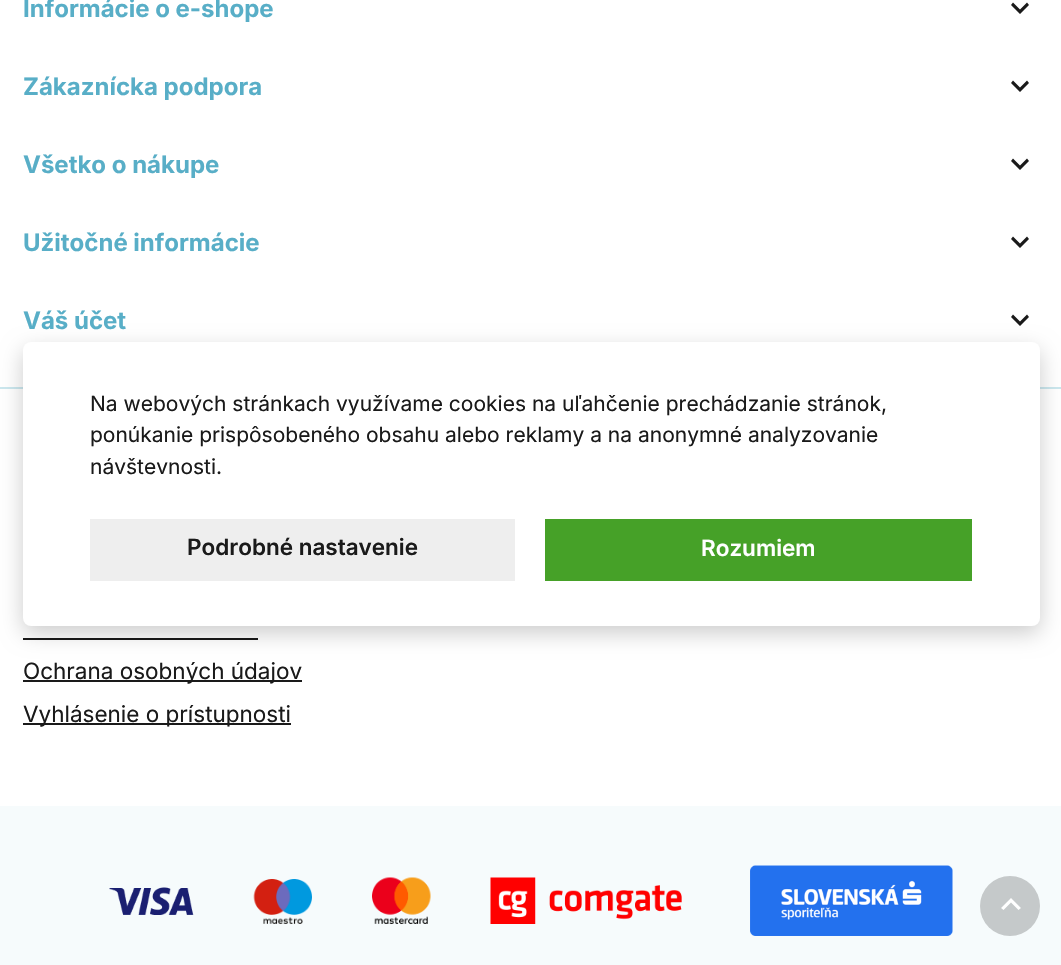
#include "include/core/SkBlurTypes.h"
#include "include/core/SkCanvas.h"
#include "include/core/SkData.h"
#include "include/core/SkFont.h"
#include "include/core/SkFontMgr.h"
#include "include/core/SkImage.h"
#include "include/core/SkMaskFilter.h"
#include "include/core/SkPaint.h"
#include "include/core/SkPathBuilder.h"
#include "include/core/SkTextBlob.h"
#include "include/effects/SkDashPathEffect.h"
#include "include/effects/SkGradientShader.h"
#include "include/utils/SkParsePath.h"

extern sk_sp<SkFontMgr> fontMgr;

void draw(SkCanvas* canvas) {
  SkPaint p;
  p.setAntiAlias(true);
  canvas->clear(SK_ColorWHITE);
  p.setColor(SkColorSetRGB(26, 26, 26));
  canvas->drawPath(SkPathBuilder().moveTo(1013, 2.5f).lineTo(1020, 9.5f).lineTo(1027, 2.5f).lineTo(1029, 5).lineTo(1020, 14).lineTo(1011, 5).close().detach(), p);
  canvas->drawPath(SkPathBuilder().moveTo(1013, 80.5f).lineTo(1020, 87.5f).lineTo(1027, 80.5f).lineTo(1029, 83).lineTo(1020, 92).lineTo(1011, 83).close().detach(), p);
  canvas->drawPath(SkPathBuilder().moveTo(1013, 158.5f).lineTo(1020, 165.5f).lineTo(1027, 158.5f).lineTo(1029, 161).lineTo(1020, 170).lineTo(1011, 161).close().detach(), p);
  canvas->drawPath(SkPathBuilder().moveTo(1013, 236.5f).lineTo(1020, 243.5f).lineTo(1027, 236.5f).lineTo(1029, 239).lineTo(1020, 248).lineTo(1011, 239).close().detach(), p);
  canvas->drawPath(SkPathBuilder().moveTo(1013, 314.5f).lineTo(1020, 321.5f).lineTo(1027, 314.5f).lineTo(1029, 317).lineTo(1020, 326).lineTo(1011, 317).close().detach(), p);
  p.setColor(SkColorSetRGB(203, 231, 238));
  canvas->drawRect(SkRect::MakeLTRB(0, 387, 1061, 389), p);
  p.setColor(SkColorSetRGB(26, 26, 26));
  canvas->drawRect(SkRect::MakeLTRB(23, 638, 258, 640), p);
  canvas->drawRect(SkRect::MakeLTRB(23, 680, 302, 682), p);
  canvas->drawRect(SkRect::MakeLTRB(23, 723, 291, 725), p);
  p.setColor(SkColorSetRGB(246, 251, 252));
  canvas->drawRect(SkRect::MakeLTRB(0, 806, 1061, 965), p);
  canvas->drawImageRect(SkImages::DeferredFromEncodedData(SkData::MakeFromFileName("images/1.png")), SkRect::MakeLTRB(109, 887, 194, 915), SkSamplingOptions());
  canvas->drawImageRect(SkImages::DeferredFromEncodedData(SkData::MakeFromFileName("images/2.png")), SkRect::MakeLTRB(253, 879, 312, 924), SkSamplingOptions());
  canvas->drawImageRect(SkImages::DeferredFromEncodedData(SkData::MakeFromFileName("images/3.png")), SkRect::MakeLTRB(372, 877, 431, 924), SkSamplingOptions());
  canvas->drawImageRect(SkImages::DeferredFromEncodedData(SkData::MakeFromFileName("images/4.png")), SkRect::MakeLTRB(490, 877, 682, 924), SkSamplingOptions());
  canvas->drawImageRect(SkImages::DeferredFromEncodedData(SkData::MakeFromFileName("images/5.png")), SkRect::MakeLTRB(750, 865, 953, 936), SkSamplingOptions());
  p.setColor(SkColorSetARGB(51, 0, 0, 0));
  p.setMaskFilter(SkMaskFilter::MakeBlur(kNormal_SkBlurStyle, 11));
  canvas->drawRoundRect(SkRect::MakeLTRB(23, 350, 1040, 633), 8, 8, p);
  p.setMaskFilter(nullptr);
  p.setColor(SK_ColorWHITE);
  canvas->drawRoundRect(SkRect::MakeLTRB(23, 342, 1040, 626), 8, 8, p);
  p.setColor(SkColorSetRGB(238, 238, 238));
  canvas->drawRect(SkRect::MakeLTRB(90, 519, 515, 581), p);
  p.setColor(SkColorSetRGB(70, 161, 40));
  canvas->drawRect(SkRect::MakeLTRB(545, 519, 972, 581), p);
  p.setColor(SkColorSetRGB(197, 201, 202));
  canvas->drawCircle(1010, 906, 30, p);
  p.setColor(SK_ColorWHITE);
  canvas->drawPath(SkPathBuilder().moveTo(1011, 898).lineTo(1021, 908).lineTo(1018.5f, 910).lineTo(1011, 902.5f).lineTo(1003.5f, 910).lineTo(1001, 908).close().detach(), p);
  SkFont font1(fontMgr->matchFamilyStyle("Inter", SkFontStyle::Bold()), 24);
  font1.setSubpixel(true);
  p.setColor(SkColorSetRGB(88, 174, 199));
  canvas->drawString("Informácie o e-shope", 23, 17, font1, p);
  canvas->drawString("Zákaznícka podpora", 23, 95, font1, p);
  canvas->drawString("Všetko o nákupe", 23, 173, font1, p);
  canvas->drawString("Užitočné informácie", 23, 251, font1, p);
  canvas->drawString("Váš účet", 23, 329, font1, p);
  SkFont font2(fontMgr->matchFamilyStyle("Inter", SkFontStyle::Normal()), 22.5f);
  font2.setSubpixel(true);
  p.setColor(SkColorSetRGB(26, 26, 26));
  canvas->drawString("Ochrana osobných údajov", 23, 679, font2, p);
  canvas->drawString("Vyhlásenie o prístupnosti", 23, 722, font2, p);
  SkFont font3(fontMgr->matchFamilyStyle("Inter", SkFontStyle::Normal()), 21);
  font3.setSubpixel(true);
  canvas->drawString("Na webových stránkach využívame cookies na uľahčenie prechádzanie stránok,", 90, 411, font3, p);
  canvas->drawString("ponúkanie prispôsobeného obsahu alebo reklamy a na anonymné analyzovanie", 90, 442, font3, p);
  canvas->drawString("návštevnosti.", 90, 474, font3, p);
  SkFont font4(fontMgr->matchFamilyStyle("Inter", SkFontStyle(600, SkFontStyle::kNormal_Width, SkFontStyle::kUpright_Slant)), 22.5f);
  font4.setSubpixel(true);
  canvas->drawString("Podrobné nastavenie", 187, 555, font4, p);
  p.setColor(SK_ColorWHITE);
  canvas->drawString("Rozumiem", 701, 556, font4, p);
}
